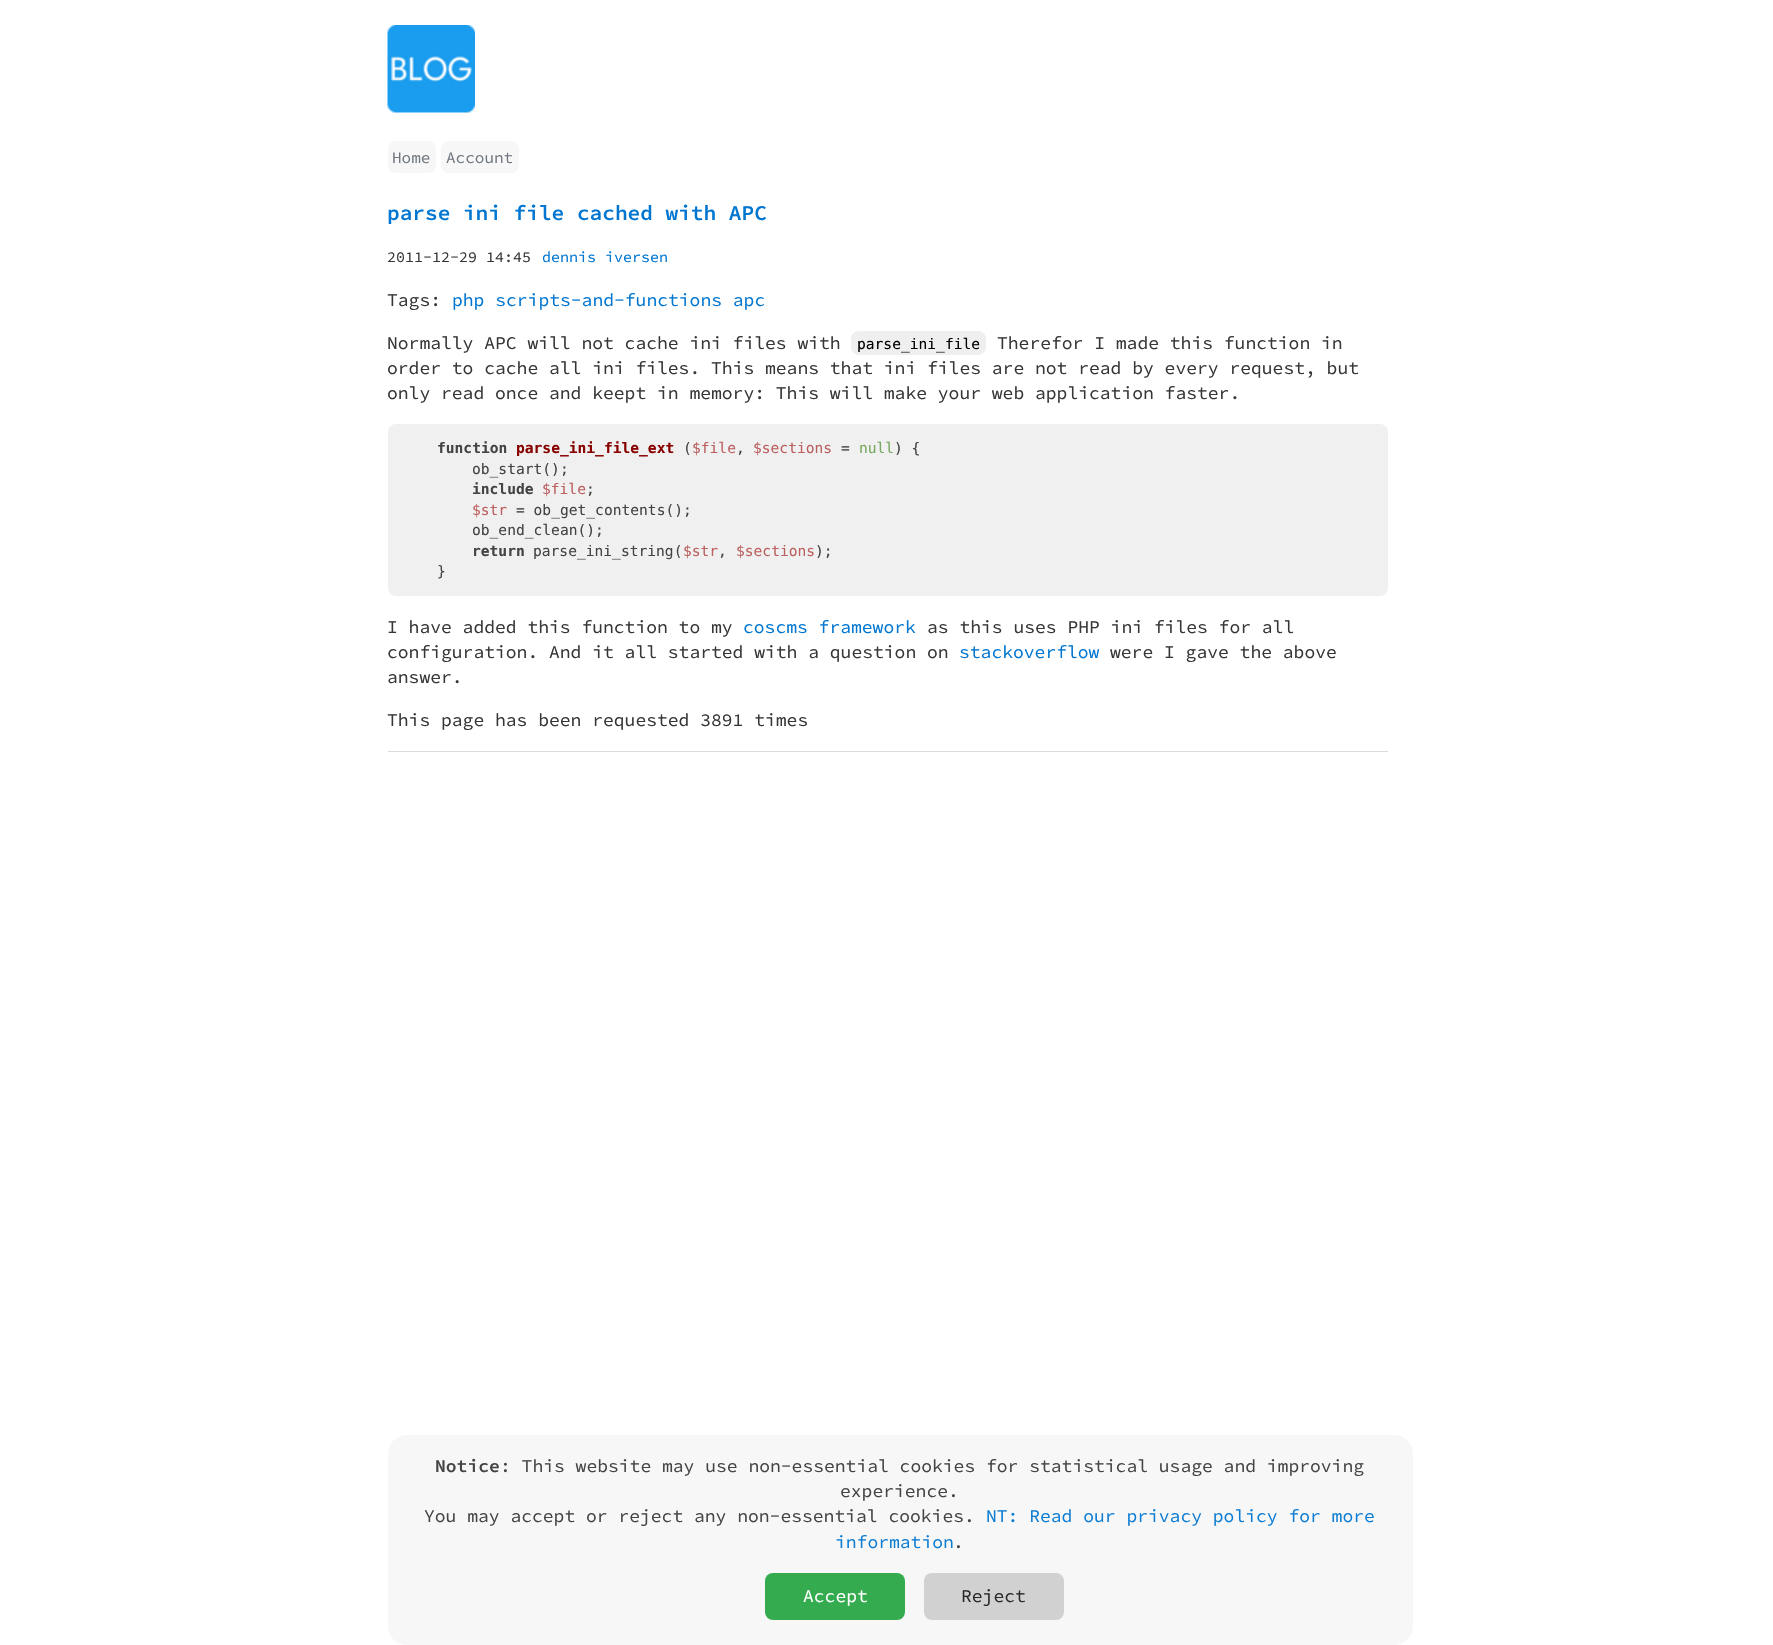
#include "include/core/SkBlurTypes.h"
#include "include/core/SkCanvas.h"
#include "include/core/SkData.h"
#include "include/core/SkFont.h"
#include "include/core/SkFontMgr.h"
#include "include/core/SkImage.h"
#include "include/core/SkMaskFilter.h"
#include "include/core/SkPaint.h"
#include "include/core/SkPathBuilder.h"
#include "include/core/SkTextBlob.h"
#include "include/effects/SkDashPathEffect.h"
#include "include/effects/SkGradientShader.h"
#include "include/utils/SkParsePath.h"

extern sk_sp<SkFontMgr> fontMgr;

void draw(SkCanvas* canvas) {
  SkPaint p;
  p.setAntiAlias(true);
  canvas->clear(SK_ColorWHITE);
  canvas->drawImageRect(SkImages::DeferredFromEncodedData(SkData::MakeFromFileName("images/1.png")), SkRect::MakeLTRB(387, 25, 475, 113), SkSamplingOptions());
  p.setColor(SkColorSetRGB(247, 247, 247));
  canvas->drawRoundRect(SkRect::MakeLTRB(388, 141, 436, 173), 8, 8, p);
  canvas->drawRoundRect(SkRect::MakeLTRB(441, 141, 519, 173), 8, 8, p);
  p.setColor(SkColorSetRGB(239, 239, 239));
  canvas->drawRoundRect(SkRect::MakeLTRB(851, 331, 986, 355), 8, 8, p);
  p.setColor(SkColorSetRGB(240, 240, 240));
  canvas->drawRoundRect(SkRect::MakeLTRB(388, 424, 1388, 596), 8, 8, p);
  p.setColor(SkColorSetRGB(219, 219, 219));
  canvas->drawRect(SkRect::MakeLTRB(388, 751, 1388, 752), p);
  p.setColor(SkColorSetRGB(247, 247, 247));
  canvas->drawRoundRect(SkRect::MakeLTRB(388, 1435, 1413, 1645), 19, 19, p);
  p.setColor(SkColorSetRGB(51, 171, 78));
  canvas->drawRoundRect(SkRect::MakeLTRB(765, 1573, 905, 1620), 8, 8, p);
  p.setColor(SkColorSetRGB(210, 209, 209));
  canvas->drawRoundRect(SkRect::MakeLTRB(924, 1573, 1064, 1620), 8, 8, p);
  SkFont font1(fontMgr->matchFamilyStyle("Source Code Pro", SkFontStyle::Normal()), 16);
  font1.setSubpixel(true);
  p.setColor(SkColorSetRGB(112, 119, 127));
  canvas->drawString("Home", 392, 163, font1, p);
  canvas->drawString("Account", 446, 163, font1, p);
  SkFont font2(fontMgr->matchFamilyStyle("Source Code Pro", SkFontStyle(600, SkFontStyle::kNormal_Width, SkFontStyle::kUpright_Slant)), 21.1f);
  font2.setSubpixel(true);
  p.setColor(SkColorSetRGB(0, 118, 209));
  canvas->drawString("parse ini file cached with APC", 387, 220, font2, p);
  SkFont font3(fontMgr->matchFamilyStyle("Source Code Pro", SkFontStyle::Normal()), 15);
  font3.setSubpixel(true);
  p.setColor(SkColorSetRGB(54, 54, 54));
  canvas->drawString("2011-12-29 14:45", 387, 262, font3, p);
  p.setColor(SkColorSetRGB(0, 118, 209));
  canvas->drawString("dennis iversen", 542, 262, font3, p);
  SkFont font4(fontMgr->matchFamilyStyle("Source Code Pro", SkFontStyle::Normal()), 18);
  font4.setSubpixel(true);
  p.setColor(SkColorSetRGB(54, 54, 54));
  canvas->drawString("Tags:", 387, 306, font4, p);
  p.setColor(SkColorSetRGB(0, 118, 209));
  canvas->drawString("php scripts-and-functions apc", 452, 306, font4, p);
  p.setColor(SkColorSetRGB(54, 54, 54));
  canvas->drawString("Normally APC will not cache ini files with", 387, 349, font4, p);
  SkFont font5(fontMgr->matchFamilyStyle("DejaVu Sans Mono", SkFontStyle::Normal()), 14.6f);
  font5.setSubpixel(true);
  p.setColor(SK_ColorBLACK);
  canvas->drawString("parse_ini_file", 857, 349, font5, p);
  p.setColor(SkColorSetRGB(54, 54, 54));
  canvas->drawString("Therefor I made this function in", 997, 349, font4, p);
  canvas->drawString("order to cache all ini files. This means that ini files are not read by every request, but", 387, 374, font4, p);
  canvas->drawString("only read once and keept in memory: This will make your web application faster.", 387, 399, font4, p);
  SkFont font6(fontMgr->matchFamilyStyle("DejaVu Sans Mono", SkFontStyle::Bold()), 14.6f);
  font6.setSubpixel(true);
  p.setColor(SkColorSetRGB(68, 68, 68));
  canvas->drawString("function", 437, 453, font6, p);
  p.setColor(SkColorSetRGB(136, 0, 0));
  canvas->drawString("parse_ini_file_ext", 516, 453, font6, p);
  p.setColor(SkColorSetRGB(68, 68, 68));
  canvas->drawString("(", 683, 453, font5, p);
  p.setColor(SkColorSetRGB(188, 96, 96));
  canvas->drawString("$file", 692, 453, font5, p);
  canvas->drawString("$sections", 753, 453, font5, p);
  p.setColor(SkColorSetRGB(68, 68, 68));
  canvas->drawString("=", 841, 453, font5, p);
  p.setColor(SkColorSetRGB(120, 169, 96));
  canvas->drawString("null", 859, 453, font5, p);
  p.setColor(SkColorSetRGB(68, 68, 68));
  canvas->drawString(") {", 894, 453, font5, p);
  canvas->drawString(",", 736, 453, font5, p);
  canvas->drawString("ob_start();", 472, 474, font5, p);
  canvas->drawString("include", 472, 494, font6, p);
  p.setColor(SkColorSetRGB(188, 96, 96));
  canvas->drawString("$file", 542, 494, font5, p);
  p.setColor(SkColorSetRGB(68, 68, 68));
  canvas->drawString(";", 586, 494, font5, p);
  p.setColor(SkColorSetRGB(188, 96, 96));
  canvas->drawString("$str", 472, 515, font5, p);
  p.setColor(SkColorSetRGB(68, 68, 68));
  canvas->drawString("= ob_get_contents();", 516, 515, font5, p);
  canvas->drawString("ob_end_clean();", 472, 535, font5, p);
  canvas->drawString("return", 472, 556, font6, p);
  canvas->drawString("parse_ini_string(", 533, 556, font5, p);
  p.setColor(SkColorSetRGB(188, 96, 96));
  canvas->drawString("$str", 683, 556, font5, p);
  p.setColor(SkColorSetRGB(68, 68, 68));
  canvas->drawString(",", 718, 556, font5, p);
  p.setColor(SkColorSetRGB(188, 96, 96));
  canvas->drawString("$sections", 736, 556, font5, p);
  p.setColor(SkColorSetRGB(68, 68, 68));
  canvas->drawString(");", 815, 556, font5, p);
  canvas->drawString("}", 437, 576, font5, p);
  p.setColor(SkColorSetRGB(54, 54, 54));
  canvas->drawString("I have added this function to my", 387, 633, font4, p);
  p.setColor(SkColorSetRGB(0, 118, 209));
  canvas->drawString("coscms framework", 743, 633, font4, p);
  p.setColor(SkColorSetRGB(54, 54, 54));
  canvas->drawString("as this uses PHP ini files for all", 927, 633, font4, p);
  canvas->drawString("configuration. And it all started with a question on", 387, 658, font4, p);
  p.setColor(SkColorSetRGB(0, 118, 209));
  canvas->drawString("stackoverflow", 959, 658, font4, p);
  p.setColor(SkColorSetRGB(54, 54, 54));
  canvas->drawString("were I gave the above", 1110, 658, font4, p);
  canvas->drawString("answer.", 387, 683, font4, p);
  canvas->drawString("This page has been requested 3891 times", 387, 726, font4, p);
  SkFont font7(fontMgr->matchFamilyStyle("Source Code Pro", SkFontStyle(600, SkFontStyle::kNormal_Width, SkFontStyle::kUpright_Slant)), 18);
  font7.setSubpixel(true);
  p.setColor(SkColorSetRGB(68, 68, 68));
  canvas->drawString("Notice", 435, 1472, font7, p);
  canvas->drawString(": This website may use non-essential cookies for statistical usage and improving", 500, 1472, font4, p);
  canvas->drawString("experience.", 840, 1497, font4, p);
  canvas->drawString("You may accept or reject any non-essential cookies.", 424, 1522, font4, p);
  p.setColor(SkColorSetRGB(13, 125, 211));
  canvas->drawString("NT: Read our privacy policy for more", 986, 1522, font4, p);
  canvas->drawString("information", 835, 1548, font4, p);
  p.setColor(SkColorSetRGB(68, 68, 68));
  canvas->drawString(".", 953, 1548, font4, p);
  p.setColor(SK_ColorWHITE);
  canvas->drawString("Accept", 803, 1602, font4, p);
  p.setColor(SkColorSetRGB(40, 40, 40));
  canvas->drawString("Reject", 961, 1602, font4, p);
}
